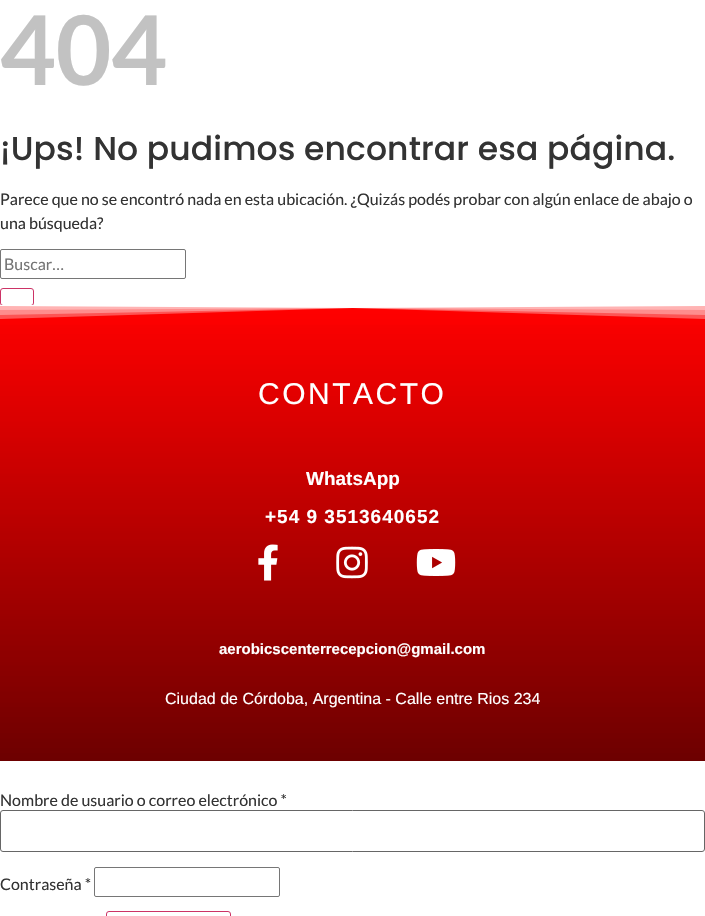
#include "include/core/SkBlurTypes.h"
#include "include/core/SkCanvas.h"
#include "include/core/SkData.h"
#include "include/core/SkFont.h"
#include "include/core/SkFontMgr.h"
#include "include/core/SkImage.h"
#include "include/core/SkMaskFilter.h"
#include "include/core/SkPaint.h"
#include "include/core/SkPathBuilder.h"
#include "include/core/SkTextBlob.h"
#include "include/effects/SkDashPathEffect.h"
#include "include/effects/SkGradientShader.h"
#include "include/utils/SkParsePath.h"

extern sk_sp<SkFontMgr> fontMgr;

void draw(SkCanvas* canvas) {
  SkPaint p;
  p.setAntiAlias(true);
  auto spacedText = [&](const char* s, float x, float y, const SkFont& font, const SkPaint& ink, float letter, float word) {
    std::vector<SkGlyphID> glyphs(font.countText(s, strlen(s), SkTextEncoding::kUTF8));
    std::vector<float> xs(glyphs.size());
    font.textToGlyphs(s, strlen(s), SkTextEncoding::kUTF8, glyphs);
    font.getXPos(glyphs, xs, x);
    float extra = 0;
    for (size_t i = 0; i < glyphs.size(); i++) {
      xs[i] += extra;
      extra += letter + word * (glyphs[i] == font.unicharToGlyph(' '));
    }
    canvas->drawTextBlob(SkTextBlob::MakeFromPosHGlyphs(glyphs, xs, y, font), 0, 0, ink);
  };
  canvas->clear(SK_ColorWHITE);
  p.setStyle(SkPaint::kStroke_Style);
  p.setStrokeWidth(1);
  p.setColor(SkColorSetRGB(118, 118, 118));
  canvas->drawRoundRect(SkRect::MakeLTRB(0.5f, 249.5f, 185.5f, 278.5f), 1.5f, 1.5f, p);
  p.setColor(SkColorSetRGB(204, 51, 102));
  canvas->drawRoundRect(SkRect::MakeLTRB(0.5f, 288.5f, 33.5f, 305.5f), 2.5f, 2.5f, p);
  p.setStyle(SkPaint::kFill_Style);
  {
    const SkColor colors[] = {SkColorSetRGB(255, 0, 0), SkColorSetRGB(167, 0, 0)};
    const float stops[] = {0, 1};
    const SkPoint ends[] = {{353, 306}, {353, 761}};
    p.setShader(SkGradientShader::MakeLinear(ends, colors, stops, 2, SkTileMode::kClamp));
    p.setAlpha(255);
  }
  canvas->drawRect(SkRect::MakeLTRB(0, 306, 705, 761), p);
  p.setShader(nullptr);
  p.setColor(SkColorSetARGB(84, 255, 255, 255));
  canvas->drawPath(SkPathBuilder().moveTo(0, 305).lineTo(0, 319).lineTo(353, 308).lineTo(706, 319).lineTo(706, 305).close().detach(), p);
  canvas->drawPath(SkPathBuilder().moveTo(0, 305).lineTo(0, 315).lineTo(353, 308).lineTo(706, 315).lineTo(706, 305).close().detach(), p);
  canvas->drawPath(SkPathBuilder().moveTo(0, 305).lineTo(0, 310).lineTo(353, 308).lineTo(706, 310).lineTo(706, 305).close().detach(), p);
  p.setColor(SK_ColorWHITE);
  canvas->drawPath(SkPathBuilder().moveTo(0, 305).lineTo(0, 306).lineTo(353, 308).lineTo(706, 306).lineTo(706, 305).close().detach(), p);
  {
    const SkColor colors[] = {SkColorSetARGB(89, 255, 0, 0), SkColorSetARGB(89, 0, 0, 0)};
    const float stops[] = {0, 1};
    const SkPoint ends[] = {{353, 306}, {353, 761}};
    p.setShader(SkGradientShader::MakeLinear(ends, colors, stops, 2, SkTileMode::kClamp));
    p.setAlpha(255);
  }
  canvas->drawRect(SkRect::MakeLTRB(0, 325, 705, 761), p);
  canvas->drawImageRect(SkImages::DeferredFromEncodedData(SkData::MakeFromFileName("images/1.png")), SkRect::MakeLTRB(258, 544, 278, 581), SkSamplingOptions());
  canvas->drawImageRect(SkImages::DeferredFromEncodedData(SkData::MakeFromFileName("images/2.png")), SkRect::MakeLTRB(336, 546, 368, 579), SkSamplingOptions());
  canvas->drawImageRect(SkImages::DeferredFromEncodedData(SkData::MakeFromFileName("images/3.png")), SkRect::MakeLTRB(416, 549, 456, 576), SkSamplingOptions());
  p.setStyle(SkPaint::kStroke_Style);
  p.setShader(nullptr);
  p.setColor(SkColorSetRGB(102, 102, 102));
  canvas->drawRoundRect(SkRect::MakeLTRB(0.5f, 810.5f, 704.5f, 851.5f), 2.5f, 2.5f, p);
  p.setColor(SkColorSetRGB(118, 118, 118));
  canvas->drawRoundRect(SkRect::MakeLTRB(94.5f, 867.5f, 279.5f, 896.5f), 1.5f, 1.5f, p);
  p.setColor(SkColorSetRGB(204, 51, 102));
  canvas->drawRoundRect(SkRect::MakeLTRB(106.5f, 911.5f, 230.5f, 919.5f), 2.5f, 2.5f, p);
  SkFont font1(fontMgr->matchFamilyStyle("Lato", SkFontStyle::Bold()), 96);
  font1.setSubpixel(true);
  p.setStyle(SkPaint::kFill_Style);
  p.setColor(SkColorSetRGB(194, 194, 194));
  canvas->drawString("404", 0, 85, font1, p);
  SkFont font2(fontMgr->matchFamilyStyle("Poppins", SkFontStyle(500, SkFontStyle::kNormal_Width, SkFontStyle::kUpright_Slant)), 33);
  font2.setSubpixel(true);
  p.setColor(SkColorSetRGB(51, 51, 51));
  spacedText("¡Ups! No pudimos encontrar esa página.", 0, 160, font2, p, 0.1f, 0);
  SkFont font3(fontMgr->matchFamilyStyle("Lato", SkFontStyle::Normal()), 16);
  font3.setSubpixel(true);
  canvas->drawString("Parece que no se encontró nada en esta ubicación. ¿Quizás podés probar con algún enlace de abajo o", 0, 205, font3, p);
  canvas->drawString("una búsqueda?", 0, 229, font3, p);
  p.setColor(SkColorSetRGB(117, 117, 117));
  canvas->drawString("Buscar…", 4, 270, font3, p);
  SkFont font4(fontMgr->matchFamilyStyle("Liberation Sans", SkFontStyle::Normal()), 30);
  font4.setSubpixel(true);
  p.setColor(SK_ColorWHITE);
  spacedText("CONTACTO", 258, 404, font4, p, 2.5f, 0);
  SkFont font5(fontMgr->matchFamilyStyle("Liberation Sans", SkFontStyle::Bold()), 19);
  font5.setSubpixel(true);
  canvas->drawString("WhatsApp", 306, 485, font5, p);
  spacedText("+54 9 3513640652", 265, 523, font5, p, 1, 0);
  SkFont font6(fontMgr->matchFamilyStyle("Liberation Sans", SkFontStyle::Bold()), 15);
  font6.setSubpixel(true);
  canvas->drawString("aerobicscenterrecepcion@gmail.com", 219, 654, font6, p);
  SkFont font7(fontMgr->matchFamilyStyle("Liberation Sans", SkFontStyle::Normal()), 16);
  font7.setSubpixel(true);
  canvas->drawString("Ciudad de Córdoba, Argentina - Calle entre Rios 234", 165, 704, font7, p);
  p.setColor(SkColorSetRGB(51, 51, 51));
  canvas->drawString("Nombre de usuario o correo electrónico *", 0, 806, font3, p);
  canvas->drawString("Contraseña *", 0, 890, font3, p);
}
